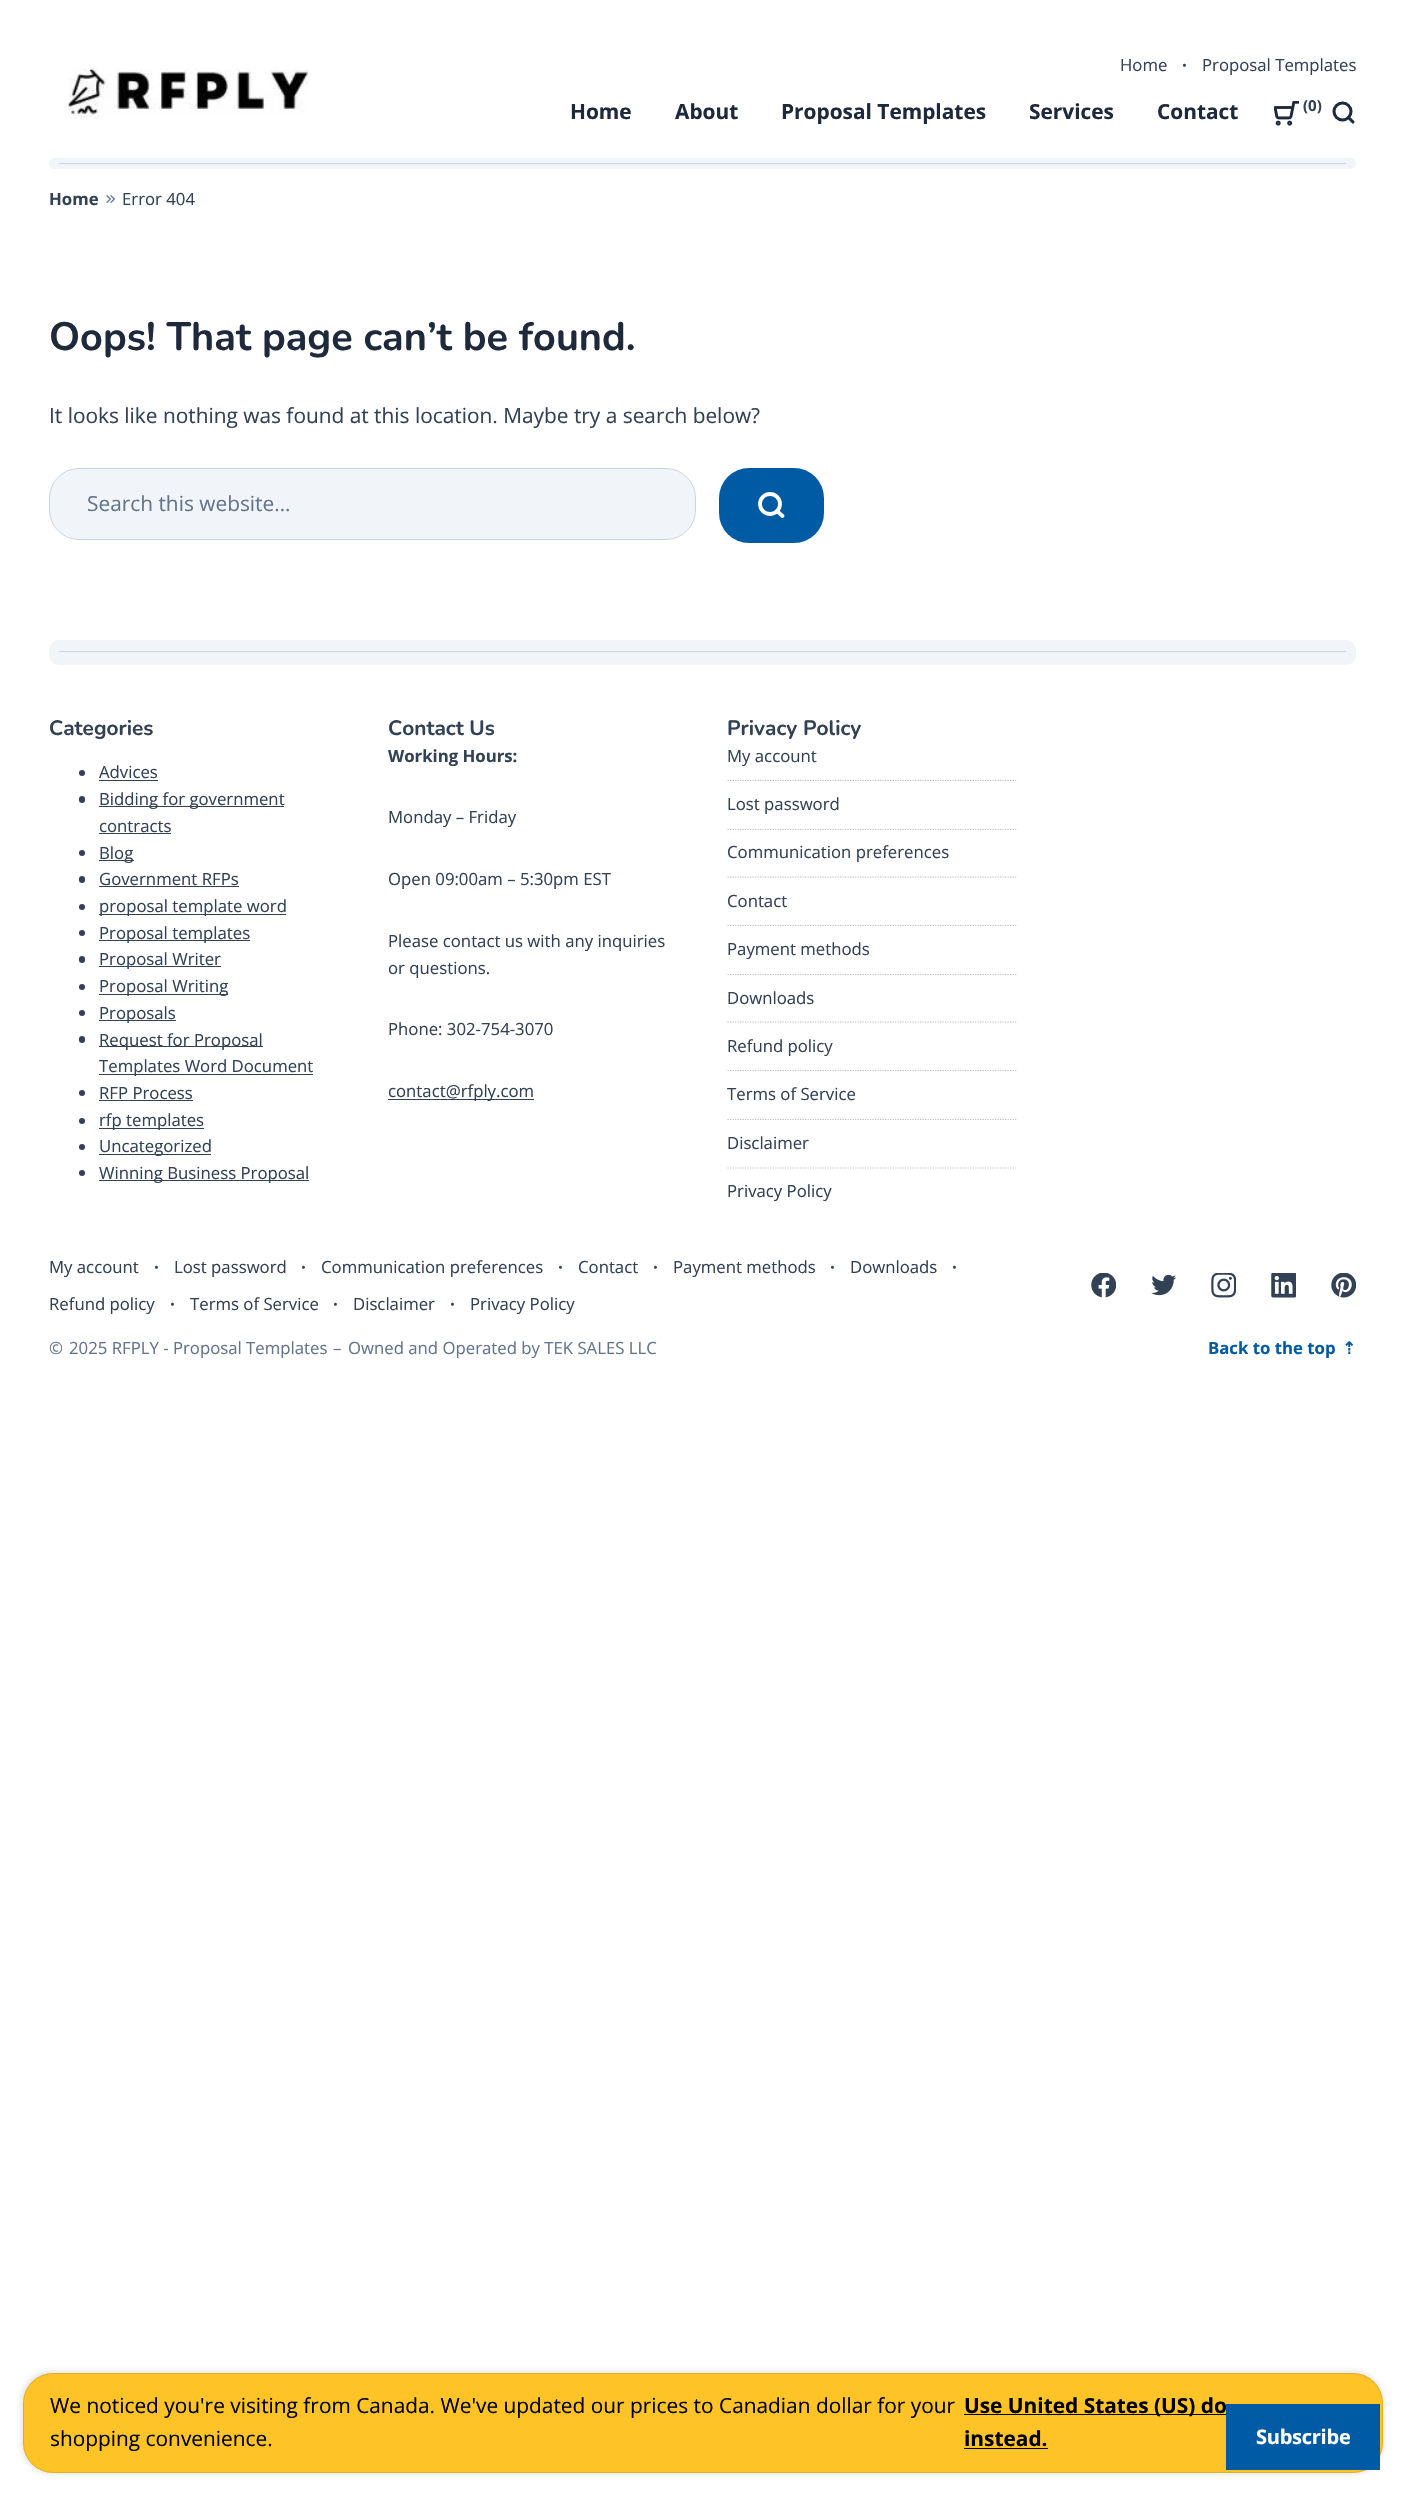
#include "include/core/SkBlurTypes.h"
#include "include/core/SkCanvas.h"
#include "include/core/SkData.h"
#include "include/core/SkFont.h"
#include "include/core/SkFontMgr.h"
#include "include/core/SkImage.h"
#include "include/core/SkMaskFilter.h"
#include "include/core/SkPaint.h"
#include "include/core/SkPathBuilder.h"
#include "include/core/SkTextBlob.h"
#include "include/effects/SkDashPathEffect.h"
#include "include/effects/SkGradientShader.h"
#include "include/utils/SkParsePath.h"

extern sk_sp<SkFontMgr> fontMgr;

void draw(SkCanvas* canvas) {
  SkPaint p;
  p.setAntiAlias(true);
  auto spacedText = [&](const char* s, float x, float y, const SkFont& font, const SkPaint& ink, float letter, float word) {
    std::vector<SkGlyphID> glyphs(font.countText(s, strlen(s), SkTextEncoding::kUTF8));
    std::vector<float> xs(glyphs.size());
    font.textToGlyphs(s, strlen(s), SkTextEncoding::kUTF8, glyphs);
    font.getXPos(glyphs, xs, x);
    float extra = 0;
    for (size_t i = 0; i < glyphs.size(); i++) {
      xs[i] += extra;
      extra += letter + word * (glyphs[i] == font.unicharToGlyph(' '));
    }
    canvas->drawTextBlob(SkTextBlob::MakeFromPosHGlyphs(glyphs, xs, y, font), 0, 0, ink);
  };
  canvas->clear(SK_ColorWHITE);
  canvas->drawImageRect(SkImages::DeferredFromEncodedData(SkData::MakeFromFileName("images/1.png")), SkRect::MakeLTRB(64, 68, 309, 119), SkSamplingOptions());
  canvas->drawImageRect(SkImages::DeferredFromEncodedData(SkData::MakeFromFileName("images/2.png")), SkRect::MakeLTRB(1274, 101, 1299, 126), SkSamplingOptions());
  p.setStyle(SkPaint::kStroke_Style);
  p.setStrokeWidth(3.1f);
  p.setColor(SkColorSetRGB(30, 41, 59));
  canvas->drawCircle(1342.5f, 111.5f, 8.5f, p);
  p.setStrokeCap(SkPaint::kRound_Cap);
  p.setStrokeJoin(SkPaint::kRound_Join);
  canvas->drawPath(SkPathBuilder().moveTo(1353, 122).lineTo(1348.5f, 117.5f).detach(), p);
  p.setStyle(SkPaint::kFill_Style);
  p.setColor(SkColorSetRGB(241, 245, 249));
  canvas->drawRoundRect(SkRect::MakeLTRB(49, 158, 1356, 169), 5.5f, 5.5f, p);
  p.setColor(SkColorSetRGB(203, 213, 225));
  canvas->drawRect(SkRect::MakeLTRB(59, 163, 1346, 164), p);
  canvas->drawImageRect(SkImages::DeferredFromEncodedData(SkData::MakeFromFileName("images/3.png")), SkRect::MakeLTRB(106, 195, 115, 203), SkSamplingOptions());
  p.setColor(SkColorSetRGB(241, 245, 249));
  canvas->drawRoundRect(SkRect::MakeLTRB(49.5f, 468.5f, 695.5f, 539.5f), 29.5f, 29.5f, p);
  p.setStyle(SkPaint::kStroke_Style);
  p.setStrokeWidth(1);
  p.setStrokeCap(SkPaint::kButt_Cap);
  p.setStrokeJoin(SkPaint::kMiter_Join);
  p.setColor(SkColorSetRGB(203, 213, 225));
  canvas->drawRoundRect(SkRect::MakeLTRB(49.5f, 468.5f, 695.5f, 539.5f), 29.5f, 29.5f, p);
  p.setStyle(SkPaint::kFill_Style);
  p.setColor(SkColorSetRGB(0, 90, 164));
  canvas->drawRoundRect(SkRect::MakeLTRB(719, 468, 824, 543), 30, 30, p);
  p.setStyle(SkPaint::kStroke_Style);
  p.setStrokeWidth(3.8f);
  p.setColor(SK_ColorWHITE);
  canvas->drawCircle(770, 504, 10, p);
  p.setStrokeCap(SkPaint::kRound_Cap);
  p.setStrokeJoin(SkPaint::kRound_Join);
  canvas->drawPath(SkPathBuilder().moveTo(782.5f, 516).lineTo(777, 511).detach(), p);
  p.setStyle(SkPaint::kFill_Style);
  p.setColor(SkColorSetRGB(241, 245, 249));
  canvas->drawRoundRect(SkRect::MakeLTRB(49, 640, 1356, 665), 10, 10, p);
  p.setColor(SkColorSetRGB(203, 213, 225));
  canvas->drawRect(SkRect::MakeLTRB(59, 651, 1346, 652), p);
  p.setColor(SkColorSetRGB(51, 65, 85));
  canvas->drawCircle(82, 773, 3, p);
  canvas->drawRect(SkRect::MakeLTRB(99, 780, 158, 781), p);
  canvas->drawRoundRect(SkRect::MakeLTRB(79, 796, 85, 803), 3, 3, p);
  canvas->drawRect(SkRect::MakeLTRB(99, 806, 284, 807), p);
  canvas->drawRect(SkRect::MakeLTRB(99, 833, 171, 834), p);
  canvas->drawCircle(82, 853, 3, p);
  canvas->drawRect(SkRect::MakeLTRB(99, 860, 134, 861), p);
  canvas->drawRoundRect(SkRect::MakeLTRB(79, 876, 85, 883), 3, 3, p);
  canvas->drawRect(SkRect::MakeLTRB(99, 886, 239, 887), p);
  canvas->drawCircle(82, 907, 3, p);
  canvas->drawRect(SkRect::MakeLTRB(99, 914, 286, 915), p);
  canvas->drawCircle(82, 933, 3, p);
  canvas->drawRect(SkRect::MakeLTRB(99, 940, 250, 941), p);
  canvas->drawRoundRect(SkRect::MakeLTRB(79, 956, 85, 963), 3, 3, p);
  canvas->drawRect(SkRect::MakeLTRB(99, 966, 221, 967), p);
  canvas->drawCircle(82, 987, 3, p);
  canvas->drawRect(SkRect::MakeLTRB(99, 994, 228, 995), p);
  canvas->drawCircle(82, 1013, 3, p);
  canvas->drawRect(SkRect::MakeLTRB(99, 1020, 176, 1021), p);
  canvas->drawRoundRect(SkRect::MakeLTRB(79, 1036, 85, 1043), 3, 3, p);
  canvas->drawRect(SkRect::MakeLTRB(99, 1046, 263, 1047), p);
  canvas->drawRect(SkRect::MakeLTRB(99, 1074, 313, 1075), p);
  canvas->drawCircle(82, 1093, 3, p);
  canvas->drawRect(SkRect::MakeLTRB(99, 1100, 193, 1101), p);
  canvas->drawCircle(82, 1121, 3, p);
  canvas->drawRect(SkRect::MakeLTRB(99, 1128, 204, 1129), p);
  canvas->drawCircle(82, 1147, 3, p);
  canvas->drawRect(SkRect::MakeLTRB(99, 1154, 211, 1155), p);
  canvas->drawCircle(82, 1173, 3, p);
  canvas->drawRect(SkRect::MakeLTRB(99, 1180, 309, 1181), p);
  canvas->drawRect(SkRect::MakeLTRB(388, 1099, 534, 1100), p);
  p.setStyle(SkPaint::kStroke_Style);
  p.setStrokeWidth(1.2f);
  p.setStrokeCap(SkPaint::kButt_Cap);
  p.setStrokeJoin(SkPaint::kMiter_Join);
  p.setColor(SkColorSetRGB(184, 189, 196));
  p.setPathEffect(SkDashPathEffect::Make({{1.25f, 1.25f}}, 0));
  canvas->drawPath(SkPathBuilder().moveTo(727.5f, 780.5f).lineTo(1017.5f, 780.5f).detach(), p);
  p.setPathEffect(nullptr);
  p.setPathEffect(SkDashPathEffect::Make({{1.25f, 1.25f}}, 0));
  canvas->drawPath(SkPathBuilder().moveTo(727.5f, 829.5f).lineTo(1017.5f, 829.5f).detach(), p);
  p.setPathEffect(nullptr);
  p.setPathEffect(SkDashPathEffect::Make({{1.25f, 1.25f}}, 0));
  canvas->drawPath(SkPathBuilder().moveTo(727.5f, 877).lineTo(1017.5f, 877).detach(), p);
  p.setPathEffect(nullptr);
  p.setPathEffect(SkDashPathEffect::Make({{1.25f, 1.25f}}, 0));
  canvas->drawPath(SkPathBuilder().moveTo(727.5f, 925.5f).lineTo(1017.5f, 925.5f).detach(), p);
  p.setPathEffect(nullptr);
  p.setPathEffect(SkDashPathEffect::Make({{1.25f, 1.25f}}, 0));
  canvas->drawPath(SkPathBuilder().moveTo(727.5f, 974.5f).lineTo(1017.5f, 974.5f).detach(), p);
  p.setPathEffect(nullptr);
  p.setPathEffect(SkDashPathEffect::Make({{1.25f, 1.25f}}, 0));
  canvas->drawPath(SkPathBuilder().moveTo(727.5f, 1022).lineTo(1017.5f, 1022).detach(), p);
  p.setPathEffect(nullptr);
  p.setPathEffect(SkDashPathEffect::Make({{1.25f, 1.25f}}, 0));
  canvas->drawPath(SkPathBuilder().moveTo(727.5f, 1070.5f).lineTo(1017.5f, 1070.5f).detach(), p);
  p.setPathEffect(nullptr);
  p.setPathEffect(SkDashPathEffect::Make({{1.25f, 1.25f}}, 0));
  canvas->drawPath(SkPathBuilder().moveTo(727.5f, 1119.5f).lineTo(1017.5f, 1119.5f).detach(), p);
  p.setPathEffect(nullptr);
  p.setPathEffect(SkDashPathEffect::Make({{1.25f, 1.25f}}, 0));
  canvas->drawPath(SkPathBuilder().moveTo(727.5f, 1168).lineTo(1017.5f, 1168).detach(), p);
  p.setPathEffect(nullptr);
  canvas->drawImageRect(SkImages::DeferredFromEncodedData(SkData::MakeFromFileName("images/4.png")), SkRect::MakeLTRB(1091, 1273, 1116, 1298), SkSamplingOptions());
  canvas->drawImageRect(SkImages::DeferredFromEncodedData(SkData::MakeFromFileName("images/5.png")), SkRect::MakeLTRB(1151, 1274, 1176, 1296), SkSamplingOptions());
  canvas->drawImageRect(SkImages::DeferredFromEncodedData(SkData::MakeFromFileName("images/6.png")), SkRect::MakeLTRB(1211, 1273, 1236, 1298), SkSamplingOptions());
  canvas->drawImageRect(SkImages::DeferredFromEncodedData(SkData::MakeFromFileName("images/7.png")), SkRect::MakeLTRB(1271, 1273, 1296, 1298), SkSamplingOptions());
  canvas->drawImageRect(SkImages::DeferredFromEncodedData(SkData::MakeFromFileName("images/8.png")), SkRect::MakeLTRB(1331, 1273, 1356, 1298), SkSamplingOptions());
  p.setStyle(SkPaint::kFill_Style);
  p.setColor(SkColorSetARGB(26, 0, 0, 0));
  p.setMaskFilter(SkMaskFilter::MakeBlur(kNormal_SkBlurStyle, 2.5f));
  canvas->drawRoundRect(SkRect::MakeLTRB(21, 2371, 1384, 2474), 31, 31, p);
  p.setMaskFilter(nullptr);
  p.setColor(SkColorSetRGB(254, 196, 39));
  canvas->drawRoundRect(SkRect::MakeLTRB(23, 2373, 1383, 2473), 30, 30, p);
  p.setStyle(SkPaint::kStroke_Style);
  p.setStrokeWidth(1);
  p.setColor(SkColorSetARGB(26, 0, 0, 0));
  canvas->drawRoundRect(SkRect::MakeLTRB(23.5f, 2373.5f, 1382.5f, 2472.5f), 29.5f, 29.5f, p);
  p.setStyle(SkPaint::kFill_Style);
  p.setColor(SK_ColorBLACK);
  canvas->drawRect(SkRect::MakeLTRB(964, 2414, 1226, 2415), p);
  canvas->drawRect(SkRect::MakeLTRB(964, 2448, 1048, 2449), p);
  p.setColor(SkColorSetRGB(0, 90, 164));
  canvas->drawRect(SkRect::MakeLTRB(1226, 2404, 1380, 2470), p);
  SkFont font1(fontMgr->matchFamilyStyle("Open Sans", SkFontStyle::Normal()), 16.75f);
  font1.setSubpixel(true);
  p.setColor(SkColorSetRGB(51, 65, 85));
  canvas->drawString("Home", 1120, 71, font1, p);
  SkFont font2(fontMgr->matchFamilyStyle("Open Sans", SkFontStyle::Normal()), 13);
  font2.setSubpixel(true);
  canvas->drawString("•", 1182, 70, font2, p);
  canvas->drawString("Proposal Templates", 1202, 71, font1, p);
  SkFont font3(fontMgr->matchFamilyStyle("Open Sans", SkFontStyle::Bold()), 20.85f);
  font3.setSubpixel(true);
  p.setColor(SkColorSetRGB(30, 41, 59));
  canvas->drawString("Home", 570, 119, font3, p);
  canvas->drawString("About", 675, 119, font3, p);
  canvas->drawString("Proposal Templates", 781, 119, font3, p);
  canvas->drawString("Services", 1029, 119, font3, p);
  canvas->drawString("Contact", 1157, 119, font3, p);
  SkFont font4(fontMgr->matchFamilyStyle("Open Sans", SkFontStyle::Bold()), 15);
  font4.setSubpixel(true);
  p.setColor(SkColorSetRGB(51, 65, 85));
  canvas->drawString("(0)", 1303, 111, font4, p);
  SkFont font5(fontMgr->matchFamilyStyle("Open Sans", SkFontStyle::Bold()), 16.75f);
  font5.setSubpixel(true);
  canvas->drawString("Home", 49, 205, font5, p);
  canvas->drawString("Error 404", 122, 205, font1, p);
  SkFont font6(fontMgr->matchFamilyStyle("Nunito", SkFontStyle::Bold()), 39.6f);
  font6.setSubpixel(true);
  p.setColor(SkColorSetRGB(30, 41, 59));
  canvas->drawString("Oops! That page can’t be found.", 49, 350, font6, p);
  SkFont font7(fontMgr->matchFamilyStyle("Open Sans", SkFontStyle::Normal()), 20.85f);
  font7.setSubpixel(true);
  p.setColor(SkColorSetRGB(51, 65, 85));
  canvas->drawString("It looks like nothing was found at this location. Maybe try a search below?", 49, 423, font7, p);
  p.setColor(SkColorSetRGB(100, 116, 139));
  canvas->drawString("Search this website…", 87, 511, font7, p);
  SkFont font8(fontMgr->matchFamilyStyle("Nunito", SkFontStyle::Bold()), 20.85f);
  font8.setSubpixel(true);
  p.setColor(SkColorSetRGB(51, 65, 85));
  canvas->drawString("Categories", 49, 735, font8, p);
  canvas->drawString("Advices", 99, 778, font1, p);
  canvas->drawString("Bidding for government", 99, 805, font1, p);
  canvas->drawString("contracts", 99, 832, font1, p);
  canvas->drawString("Blog", 99, 859, font1, p);
  canvas->drawString("Government RFPs", 99, 885, font1, p);
  canvas->drawString("proposal template word", 99, 912, font1, p);
  canvas->drawString("Proposal templates", 99, 939, font1, p);
  canvas->drawString("Proposal Writer", 99, 965, font1, p);
  canvas->drawString("Proposal Writing", 99, 992, font1, p);
  canvas->drawString("Proposals", 99, 1019, font1, p);
  canvas->drawString("Request for Proposal", 99, 1046, font1, p);
  canvas->drawString("Templates Word Document", 99, 1072, font1, p);
  canvas->drawString("RFP Process", 99, 1099, font1, p);
  canvas->drawString("rfp templates", 99, 1126, font1, p);
  canvas->drawString("Uncategorized", 99, 1152, font1, p);
  canvas->drawString("Winning Business Proposal", 99, 1179, font1, p);
  canvas->drawString("Contact Us", 388, 735, font8, p);
  canvas->drawString("Working Hours:", 388, 762, font5, p);
  canvas->drawString("Monday – Friday", 388, 823, font1, p);
  canvas->drawString("Open 09:00am – 5:30pm EST", 388, 885, font1, p);
  canvas->drawString("Please contact us with any inquiries", 388, 947, font1, p);
  canvas->drawString("or questions.", 388, 974, font1, p);
  canvas->drawString("Phone: 302-754-3070", 388, 1035, font1, p);
  canvas->drawString("contact@rfply.com", 388, 1097, font1, p);
  canvas->drawString("Privacy Policy", 727, 735, font8, p);
  canvas->drawString("My account", 727, 762, font1, p);
  canvas->drawString("Lost password", 727, 810, font1, p);
  canvas->drawString("Communication preferences", 727, 858, font1, p);
  canvas->drawString("Contact", 727, 907, font1, p);
  canvas->drawString("Payment methods", 727, 955, font1, p);
  canvas->drawString("Downloads", 727, 1004, font1, p);
  canvas->drawString("Refund policy", 727, 1052, font1, p);
  canvas->drawString("Terms of Service", 727, 1100, font1, p);
  canvas->drawString("Disclaimer", 727, 1149, font1, p);
  canvas->drawString("Privacy Policy", 727, 1197, font1, p);
  canvas->drawString("My account", 49, 1273, font1, p);
  canvas->drawString("•", 154, 1272, font2, p);
  canvas->drawString("Lost password", 174, 1273, font1, p);
  canvas->drawString("•", 301, 1272, font2, p);
  canvas->drawString("Communication preferences", 321, 1273, font1, p);
  canvas->drawString("•", 558, 1272, font2, p);
  canvas->drawString("Contact", 578, 1273, font1, p);
  canvas->drawString("•", 653, 1272, font2, p);
  canvas->drawString("Payment methods", 673, 1273, font1, p);
  canvas->drawString("•", 830, 1272, font2, p);
  canvas->drawString("Downloads", 850, 1273, font1, p);
  canvas->drawString("•", 952, 1272, font2, p);
  canvas->drawString("Refund policy", 49, 1310, font1, p);
  canvas->drawString("•", 170, 1309, font2, p);
  canvas->drawString("Terms of Service", 190, 1310, font1, p);
  canvas->drawString("•", 333, 1309, font2, p);
  canvas->drawString("Disclaimer", 353, 1310, font1, p);
  canvas->drawString("•", 450, 1309, font2, p);
  canvas->drawString("Privacy Policy", 470, 1310, font1, p);
  p.setColor(SkColorSetRGB(100, 116, 139));
  canvas->drawString("©", 49, 1354, font1, p);
  canvas->drawString("2025 RFPLY - Proposal Templates", 69, 1354, font1, p);
  canvas->drawString("–", 333, 1354, font1, p);
  canvas->drawString("Owned and Operated by TEK SALES LLC", 348, 1354, font1, p);
  p.setColor(SkColorSetRGB(0, 90, 164));
  canvas->drawString("Back to the top", 1208, 1354, font5, p);
  SkFont font9(fontMgr->matchFamilyStyle("DejaVu Sans", SkFontStyle::Bold()), 16.75f);
  font9.setSubpixel(true);
  canvas->drawString("⇡", 1342, 1354, font9, p);
  p.setColor(SK_ColorBLACK);
  canvas->drawString("We noticed you're visiting from Canada. We've updated our prices to Canadian dollar for your", 50, 2413, font7, p);
  canvas->drawString("Use United States (US) do", 964, 2413, font3, p);
  canvas->drawString("instead.", 964, 2446, font3, p);
  canvas->drawString("shopping convenience.", 50, 2446, font7, p);
  SkFont font10(fontMgr->matchFamilyStyle("Open Sans", SkFontStyle::Bold()), 20);
  font10.setSubpixel(true);
  p.setColor(SK_ColorWHITE);
  spacedText("Subscribe", 1256, 2444, font10, p, -0.25f, 0);
}
